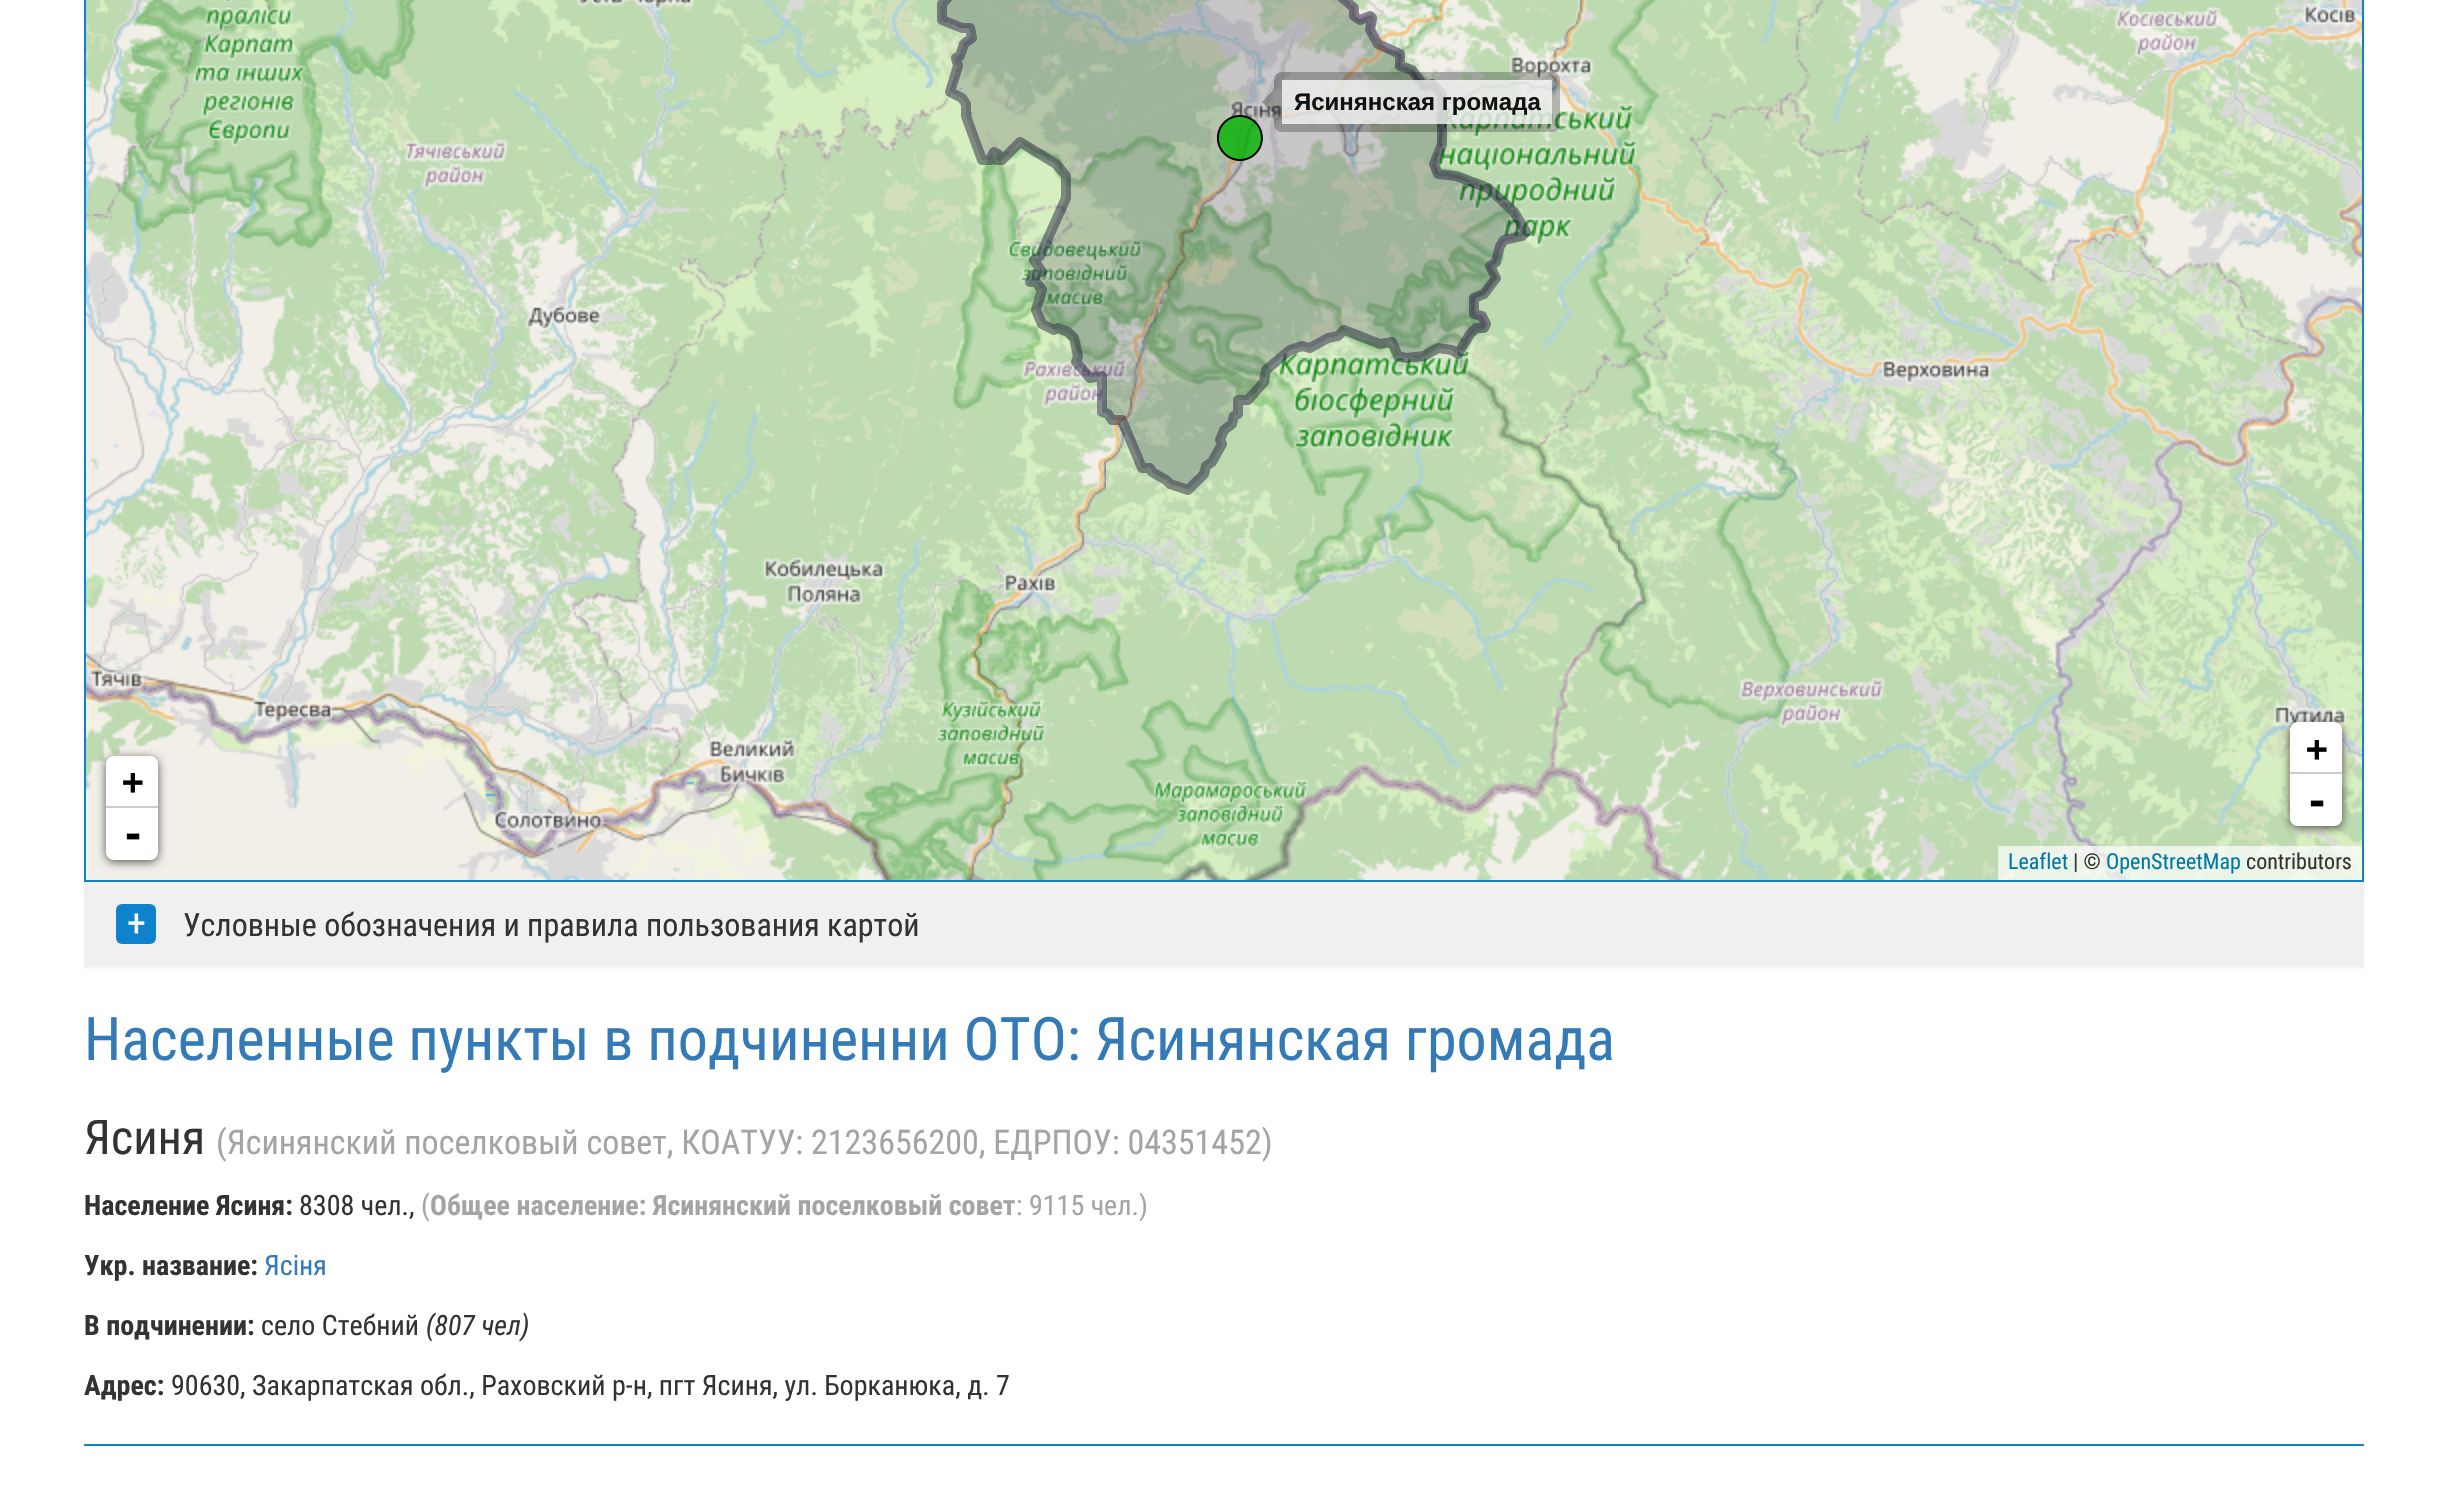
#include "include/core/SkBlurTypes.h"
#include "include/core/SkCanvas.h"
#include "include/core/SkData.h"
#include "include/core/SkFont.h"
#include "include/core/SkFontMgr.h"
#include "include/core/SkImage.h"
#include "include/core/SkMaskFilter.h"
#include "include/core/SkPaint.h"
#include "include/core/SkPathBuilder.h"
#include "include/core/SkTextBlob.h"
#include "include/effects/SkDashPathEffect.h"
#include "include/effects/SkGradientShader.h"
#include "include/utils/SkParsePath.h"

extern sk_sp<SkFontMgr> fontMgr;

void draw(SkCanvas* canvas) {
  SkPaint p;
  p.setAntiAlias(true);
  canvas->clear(SK_ColorWHITE);
  p.setColor(SkColorSetARGB(13, 0, 0, 0));
  p.setMaskFilter(SkMaskFilter::MakeBlur(kNormal_SkBlurStyle, 1));
  canvas->drawRect(SkRect::MakeLTRB(84, 884, 2364, 968), p);
  p.setMaskFilter(nullptr);
  p.setStyle(SkPaint::kStroke_Style);
  p.setStrokeWidth(2);
  p.setColor(SkColorSetRGB(14, 131, 205));
  canvas->drawRect(SkRect::MakeLTRB(85, -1, 2363, 881), p);
  canvas->drawImageRect(SkImages::DeferredFromEncodedData(SkData::MakeFromFileName("images/1.png")), SkRect::MakeLTRB(86, 0, 594, 214), SkSamplingOptions());
  canvas->drawImageRect(SkImages::DeferredFromEncodedData(SkData::MakeFromFileName("images/2.png")), SkRect::MakeLTRB(594, 0, 1106, 214), SkSamplingOptions());
  canvas->drawImageRect(SkImages::DeferredFromEncodedData(SkData::MakeFromFileName("images/3.png")), SkRect::MakeLTRB(1106, 0, 1618, 214), SkSamplingOptions());
  canvas->drawImageRect(SkImages::DeferredFromEncodedData(SkData::MakeFromFileName("images/4.png")), SkRect::MakeLTRB(1618, 0, 2130, 214), SkSamplingOptions());
  canvas->drawImageRect(SkImages::DeferredFromEncodedData(SkData::MakeFromFileName("images/5.png")), SkRect::MakeLTRB(2130, 0, 2362, 214), SkSamplingOptions());
  canvas->drawImageRect(SkImages::DeferredFromEncodedData(SkData::MakeFromFileName("images/6.png")), SkRect::MakeLTRB(86, 214, 594, 726), SkSamplingOptions());
  canvas->drawImageRect(SkImages::DeferredFromEncodedData(SkData::MakeFromFileName("images/7.png")), SkRect::MakeLTRB(594, 214, 1106, 726), SkSamplingOptions());
  canvas->drawImageRect(SkImages::DeferredFromEncodedData(SkData::MakeFromFileName("images/8.png")), SkRect::MakeLTRB(1106, 214, 1618, 726), SkSamplingOptions());
  canvas->drawImageRect(SkImages::DeferredFromEncodedData(SkData::MakeFromFileName("images/9.png")), SkRect::MakeLTRB(1618, 214, 2130, 726), SkSamplingOptions());
  canvas->drawImageRect(SkImages::DeferredFromEncodedData(SkData::MakeFromFileName("images/10.png")), SkRect::MakeLTRB(2130, 214, 2362, 726), SkSamplingOptions());
  canvas->drawImageRect(SkImages::DeferredFromEncodedData(SkData::MakeFromFileName("images/11.png")), SkRect::MakeLTRB(86, 726, 594, 880), SkSamplingOptions());
  canvas->drawImageRect(SkImages::DeferredFromEncodedData(SkData::MakeFromFileName("images/12.png")), SkRect::MakeLTRB(594, 726, 1106, 880), SkSamplingOptions());
  canvas->drawImageRect(SkImages::DeferredFromEncodedData(SkData::MakeFromFileName("images/13.png")), SkRect::MakeLTRB(1106, 726, 1618, 880), SkSamplingOptions());
  canvas->drawImageRect(SkImages::DeferredFromEncodedData(SkData::MakeFromFileName("images/14.png")), SkRect::MakeLTRB(1618, 726, 2130, 880), SkSamplingOptions());
  canvas->drawImageRect(SkImages::DeferredFromEncodedData(SkData::MakeFromFileName("images/15.png")), SkRect::MakeLTRB(2130, 726, 2362, 880), SkSamplingOptions());
  canvas->drawImageRect(SkImages::DeferredFromEncodedData(SkData::MakeFromFileName("images/16.png")), SkRect::MakeLTRB(937, 0, 1531, 495), SkSamplingOptions());
  p.setStyle(SkPaint::kFill_Style);
  p.setColor(SkColorSetARGB(207, 235, 235, 235));
  canvas->drawRect(SkRect::MakeLTRB(1282, 80, 1552, 124), p);
  p.setStyle(SkPaint::kStroke_Style);
  p.setStrokeWidth(8);
  p.setColor(SkColorSetARGB(64, 0, 0, 0));
  canvas->drawRoundRect(SkRect::MakeLTRB(1278, 76, 1556, 128), 4, 4, p);
  p.setStyle(SkPaint::kFill_Style);
  canvas->drawPath(SkPathBuilder().moveTo(1274, 90).lineTo(1274, 114).lineTo(1262, 102).close().detach(), p);
  p.setColor(SkColorSetARGB(166, 0, 0, 0));
  p.setMaskFilter(SkMaskFilter::MakeBlur(kNormal_SkBlurStyle, 5));
  canvas->drawRoundRect(SkRect::MakeLTRB(106, 758, 158, 862), 8, 8, p);
  p.setMaskFilter(nullptr);
  p.setColor(SK_ColorWHITE);
  canvas->drawPath(SkPathBuilder().moveTo(114, 756).lineTo(150, 756).cubicTo(154.5f, 756, 158, 759.5f, 158, 764).lineTo(158, 808).lineTo(106, 808).lineTo(106, 764).cubicTo(106, 759.5f, 109.5f, 756, 114, 756).close().detach(), p);
  p.setColor(SkColorSetRGB(204, 204, 204));
  canvas->drawRect(SkRect::MakeLTRB(106, 806, 158, 808), p);
  p.setColor(SK_ColorWHITE);
  canvas->drawPath(SkPathBuilder().moveTo(106, 808).lineTo(158, 808).lineTo(158, 852).cubicTo(158, 856.5f, 154.5f, 860, 150, 860).lineTo(114, 860).cubicTo(109.5f, 860, 106, 856.5f, 106, 852).close().detach(), p);
  p.setColor(SkColorSetARGB(166, 0, 0, 0));
  p.setMaskFilter(SkMaskFilter::MakeBlur(kNormal_SkBlurStyle, 5));
  canvas->drawRoundRect(SkRect::MakeLTRB(2290, 724, 2342, 828), 8, 8, p);
  p.setMaskFilter(nullptr);
  p.setColor(SK_ColorWHITE);
  canvas->drawPath(SkPathBuilder().moveTo(2298, 722).lineTo(2334, 722).cubicTo(2338.5f, 722, 2342, 725.5f, 2342, 730).lineTo(2342, 774).lineTo(2290, 774).lineTo(2290, 730).cubicTo(2290, 725.5f, 2293.5f, 722, 2298, 722).close().detach(), p);
  p.setColor(SkColorSetRGB(204, 204, 204));
  canvas->drawRect(SkRect::MakeLTRB(2290, 772, 2342, 774), p);
  p.setColor(SK_ColorWHITE);
  canvas->drawPath(SkPathBuilder().moveTo(2290, 774).lineTo(2342, 774).lineTo(2342, 818).cubicTo(2342, 822.5f, 2338.5f, 826, 2334, 826).lineTo(2298, 826).cubicTo(2293.5f, 826, 2290, 822.5f, 2290, 818).close().detach(), p);
  p.setColor(SkColorSetARGB(179, 255, 255, 255));
  canvas->drawRect(SkRect::MakeLTRB(1998, 846, 2362, 880), p);
  p.setColor(SkColorSetRGB(240, 240, 240));
  canvas->drawRect(SkRect::MakeLTRB(84, 882, 2364, 966), p);
  p.setColor(SkColorSetRGB(14, 131, 205));
  canvas->drawRoundRect(SkRect::MakeLTRB(116, 904, 156, 944), 6, 6, p);
  canvas->drawRect(SkRect::MakeLTRB(84, 1444, 2364, 1446), p);
  SkFont font1(fontMgr->matchFamilyStyle("Liberation Sans", SkFontStyle::Bold()), 24);
  font1.setSubpixel(true);
  p.setColor(SkColorSetRGB(17, 17, 17));
  canvas->drawString("Ясинянская громада", 1294, 110, font1, p);
  SkFont font2(fontMgr->matchFamilyStyle("DejaVu Sans Mono", SkFontStyle::Bold()), 36);
  font2.setSubpixel(true);
  p.setColor(SK_ColorBLACK);
  canvas->drawString("+", 122, 794, font2, p);
  SkFont font3(fontMgr->matchFamilyStyle("DejaVu Sans Mono", SkFontStyle::Bold()), 40);
  font3.setSubpixel(true);
  canvas->drawString("-", 121, 848, font3, p);
  canvas->drawString("+", 2306, 761, font2, p);
  canvas->drawString("-", 2305, 815, font3, p);
  SkFont font4(fontMgr->matchFamilyStyle("Roboto Condensed", SkFontStyle::Normal()), 22);
  font4.setSubpixel(true);
  p.setColor(SkColorSetRGB(0, 120, 168));
  canvas->drawString("Leaflet", 2008, 869, font4, p);
  p.setColor(SkColorSetRGB(51, 51, 51));
  canvas->drawString("| ©", 2073, 869, font4, p);
  p.setColor(SkColorSetRGB(0, 120, 168));
  canvas->drawString("OpenStreetMap", 2106, 869, font4, p);
  p.setColor(SkColorSetRGB(51, 51, 51));
  canvas->drawString("contributors", 2246, 869, font4, p);
  SkFont font5(fontMgr->matchFamilyStyle("Roboto Condensed", SkFontStyle::Normal()), 38);
  font5.setSubpixel(true);
  p.setColor(SK_ColorWHITE);
  canvas->drawString("+", 127, 936, font5, p);
  SkFont font6(fontMgr->matchFamilyStyle("Roboto Condensed", SkFontStyle::Normal()), 32);
  font6.setSubpixel(true);
  p.setColor(SkColorSetRGB(51, 51, 51));
  canvas->drawString("Условные обозначения и правила пользования картой", 183, 936, font6, p);
  SkFont font7(fontMgr->matchFamilyStyle("Roboto Condensed", SkFontStyle::Normal()), 60);
  font7.setSubpixel(true);
  p.setColor(SkColorSetRGB(51, 122, 183));
  canvas->drawString("Населенные пункты в подчиненни ОТО: Ясинянская громада", 84, 1060, font7, p);
  SkFont font8(fontMgr->matchFamilyStyle("Roboto Condensed", SkFontStyle::Normal()), 48);
  font8.setSubpixel(true);
  p.setColor(SkColorSetRGB(51, 51, 51));
  canvas->drawString("Ясиня", 84, 1154, font8, p);
  SkFont font9(fontMgr->matchFamilyStyle("Roboto Condensed", SkFontStyle::Normal()), 34);
  font9.setSubpixel(true);
  p.setColor(SkColorSetRGB(164, 164, 164));
  canvas->drawString("(Ясинянский поселковый совет, КОАТУУ: 2123656200, ЕДРПОУ: 04351452)", 216, 1154, font9, p);
  SkFont font10(fontMgr->matchFamilyStyle("Roboto Condensed", SkFontStyle::Bold()), 28);
  font10.setSubpixel(true);
  p.setColor(SkColorSetRGB(51, 51, 51));
  canvas->drawString("Население Ясиня:", 84, 1215, font10, p);
  SkFont font11(fontMgr->matchFamilyStyle("Roboto Condensed", SkFontStyle::Normal()), 28);
  font11.setSubpixel(true);
  canvas->drawString("8308 чел.,", 299, 1215, font11, p);
  p.setColor(SkColorSetRGB(164, 164, 164));
  canvas->drawString("(", 421, 1215, font11, p);
  canvas->drawString("Общее население: Ясинянский поселковый совет", 430, 1215, font10, p);
  canvas->drawString(": 9115 чел.)", 1016, 1215, font11, p);
  p.setColor(SkColorSetRGB(51, 51, 51));
  canvas->drawString("Укр. название:", 84, 1275, font10, p);
  p.setColor(SkColorSetRGB(51, 122, 183));
  canvas->drawString("Ясіня", 264, 1275, font11, p);
  p.setColor(SkColorSetRGB(51, 51, 51));
  canvas->drawString("В подчинении:", 84, 1335, font10, p);
  canvas->drawString("село Стебний", 261, 1335, font11, p);
  SkFont font12(fontMgr->matchFamilyStyle("Roboto Condensed", SkFontStyle::Italic()), 28);
  font12.setSubpixel(true);
  canvas->drawString("(807 чел)", 426, 1335, font12, p);
  canvas->drawString("Адрес:", 84, 1395, font10, p);
  canvas->drawString("90630, Закарпатская обл., Раховский р-н, пгт Ясиня, ул. Борканюка, д. 7", 171, 1395, font11, p);
}
